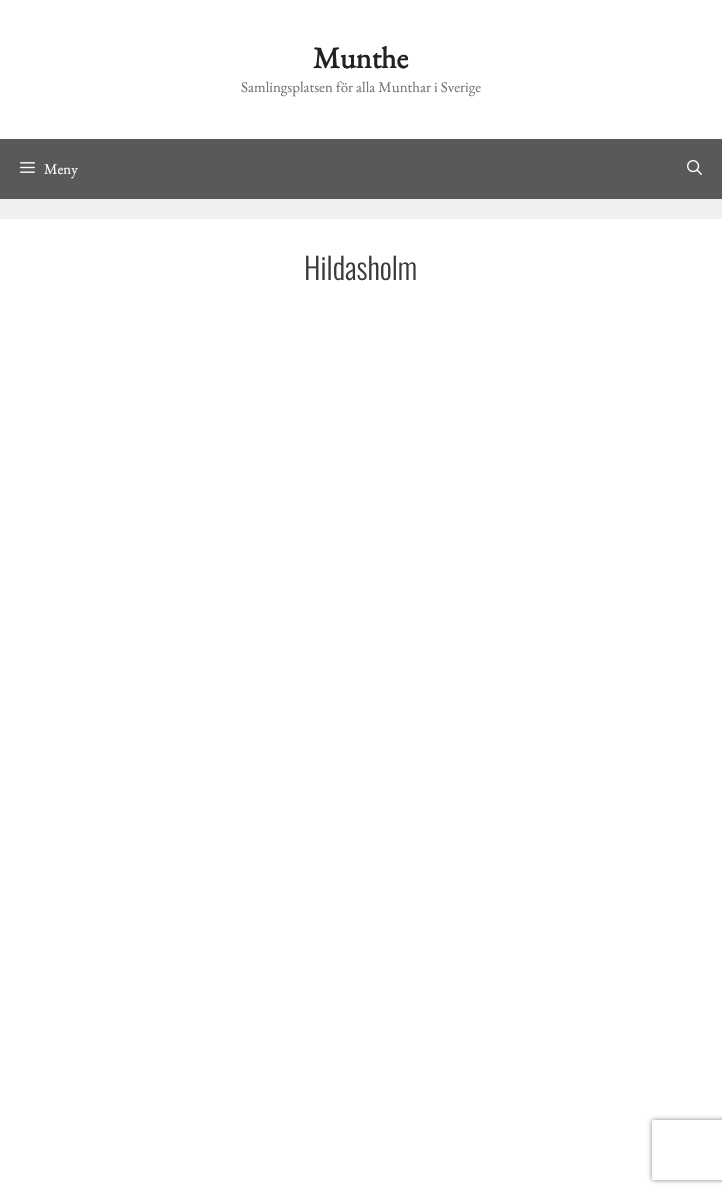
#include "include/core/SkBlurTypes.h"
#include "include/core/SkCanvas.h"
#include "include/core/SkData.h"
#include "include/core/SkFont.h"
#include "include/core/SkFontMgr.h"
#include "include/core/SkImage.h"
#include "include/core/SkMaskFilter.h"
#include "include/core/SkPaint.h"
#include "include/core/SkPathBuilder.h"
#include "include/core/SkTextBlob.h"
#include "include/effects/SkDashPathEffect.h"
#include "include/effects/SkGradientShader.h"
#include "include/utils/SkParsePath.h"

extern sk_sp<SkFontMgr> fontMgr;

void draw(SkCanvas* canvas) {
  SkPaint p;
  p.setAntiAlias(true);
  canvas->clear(SkColorSetRGB(239, 239, 239));
  p.setColor(SK_ColorWHITE);
  canvas->drawRect(SkRect::MakeLTRB(0, 0, 722, 139), p);
  p.setColor(SkColorSetRGB(89, 89, 89));
  canvas->drawRect(SkRect::MakeLTRB(0, 139, 722, 199), p);
  canvas->drawImageRect(SkImages::DeferredFromEncodedData(SkData::MakeFromFileName("images/1.png")), SkRect::MakeLTRB(20, 162, 35, 173), SkSamplingOptions());
  canvas->drawImageRect(SkImages::DeferredFromEncodedData(SkData::MakeFromFileName("images/2.png")), SkRect::MakeLTRB(687, 160, 702, 175), SkSamplingOptions());
  p.setColor(SK_ColorWHITE);
  canvas->drawRect(SkRect::MakeLTRB(0, 219, 722, 1194), p);
  canvas->save();
  canvas->clipPath(SkPathBuilder(SkPathFillType::kEvenOdd).moveTo(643, 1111).lineTo(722, 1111).lineTo(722, 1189).lineTo(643, 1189).close().moveTo(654, 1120).lineTo(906, 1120).cubicTo(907, 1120, 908, 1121, 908, 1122).lineTo(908, 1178).cubicTo(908, 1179, 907, 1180, 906, 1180).lineTo(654, 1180).cubicTo(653, 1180, 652, 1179, 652, 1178).lineTo(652, 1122).cubicTo(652, 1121, 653, 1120, 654, 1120).close().detach(), true);
  p.setColor(SkColorSetRGB(128, 128, 128));
  p.setMaskFilter(SkMaskFilter::MakeBlur(kNormal_SkBlurStyle, 2.5f));
  canvas->drawRoundRect(SkRect::MakeLTRB(652, 1120, 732, 1180), 2, 2, p);
  p.setMaskFilter(nullptr);
  canvas->restore();
  SkFont font1(fontMgr->matchFamilyStyle("EB Garamond", SkFontStyle::Bold()), 30);
  font1.setSubpixel(true);
  p.setColor(SkColorSetRGB(34, 34, 34));
  canvas->drawString("Munthe", 313, 68, font1, p);
  SkFont font2(fontMgr->matchFamilyStyle("EB Garamond", SkFontStyle::Normal()), 15);
  font2.setSubpixel(true);
  p.setColor(SkColorSetRGB(117, 117, 117));
  canvas->drawString("Samlingsplatsen för alla Munthar i Sverige", 241, 92, font2, p);
  p.setColor(SK_ColorWHITE);
  canvas->drawString("Meny", 44, 174, font2, p);
  SkFont font3(fontMgr->matchFamilyStyle("Oswald", SkFontStyle(300, SkFontStyle::kNormal_Width, SkFontStyle::kUpright_Slant)), 30);
  font3.setSubpixel(true);
  p.setColor(SkColorSetRGB(58, 58, 58));
  canvas->drawString("Hildasholm", 304, 280, font3, p);
}
